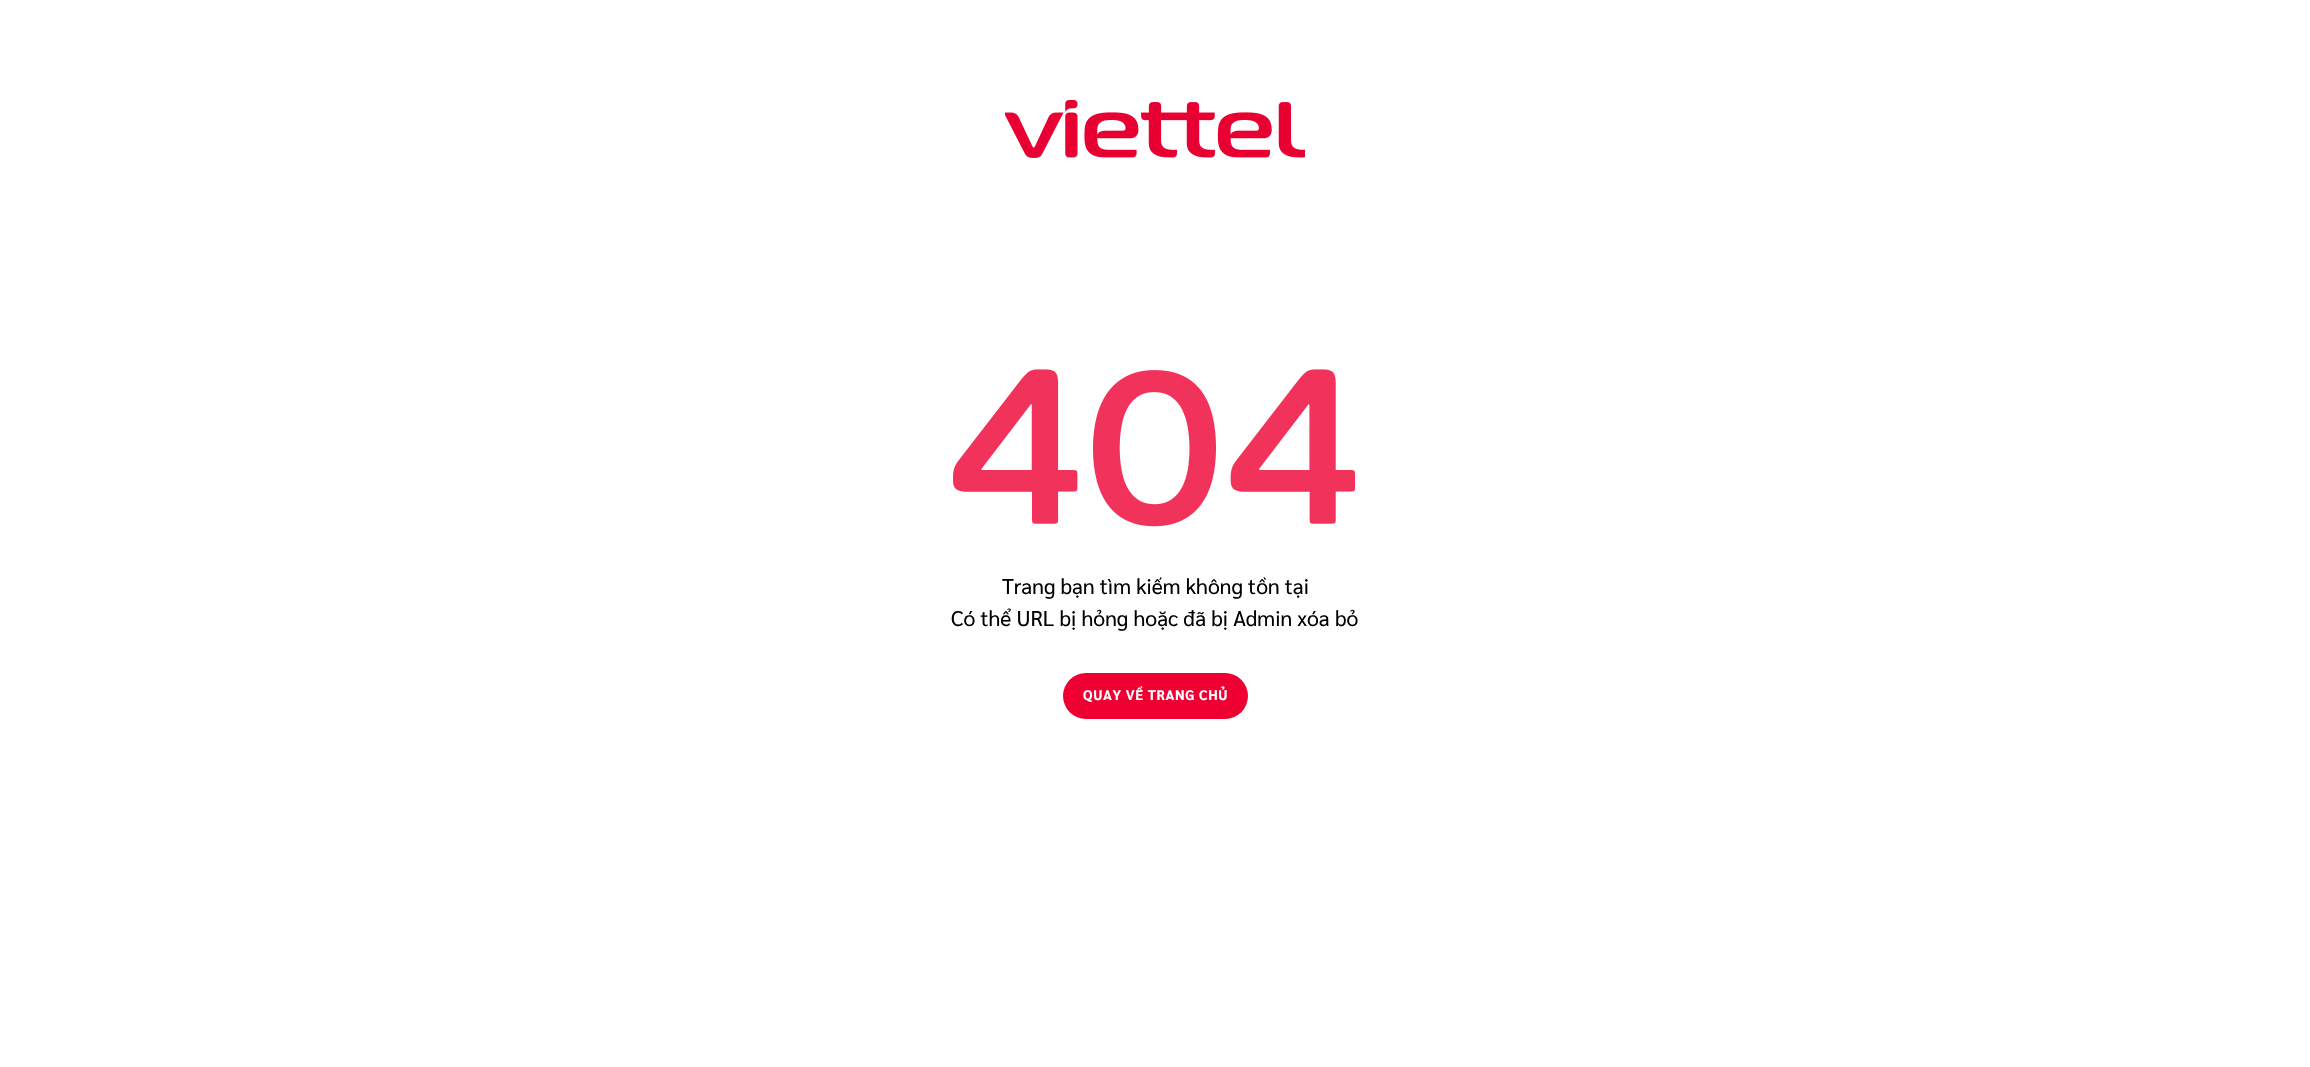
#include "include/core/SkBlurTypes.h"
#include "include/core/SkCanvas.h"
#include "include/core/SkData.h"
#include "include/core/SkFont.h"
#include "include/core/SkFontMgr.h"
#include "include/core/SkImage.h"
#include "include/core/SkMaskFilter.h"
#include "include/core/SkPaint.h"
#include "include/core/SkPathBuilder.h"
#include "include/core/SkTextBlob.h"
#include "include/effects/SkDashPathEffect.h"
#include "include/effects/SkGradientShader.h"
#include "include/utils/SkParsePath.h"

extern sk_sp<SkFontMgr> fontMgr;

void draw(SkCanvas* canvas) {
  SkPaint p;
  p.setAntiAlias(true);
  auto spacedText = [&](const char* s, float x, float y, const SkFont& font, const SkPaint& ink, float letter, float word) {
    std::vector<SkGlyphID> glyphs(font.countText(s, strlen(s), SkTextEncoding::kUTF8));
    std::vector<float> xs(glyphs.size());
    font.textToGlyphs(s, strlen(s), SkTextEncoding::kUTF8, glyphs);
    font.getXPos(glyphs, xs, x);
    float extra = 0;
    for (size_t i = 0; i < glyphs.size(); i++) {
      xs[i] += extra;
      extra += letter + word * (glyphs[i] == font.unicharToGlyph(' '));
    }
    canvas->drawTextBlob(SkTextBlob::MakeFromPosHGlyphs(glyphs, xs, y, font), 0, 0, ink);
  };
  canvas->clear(SK_ColorWHITE);
  canvas->drawImageRect(SkImages::DeferredFromEncodedData(SkData::MakeFromFileName("images/1.png")), SkRect::MakeLTRB(1005, 100, 1305, 158), SkSamplingOptions());
  canvas->drawImageRect(SkImages::DeferredFromEncodedData(SkData::MakeFromFileName("images/2.png")), SkRect::MakeLTRB(953, 369, 1356, 527), SkSamplingOptions());
  p.setColor(SkColorSetRGB(238, 0, 51));
  canvas->drawRoundRect(SkRect::MakeLTRB(1063, 673, 1248, 719), 23, 23, p);
  SkFont font1(fontMgr->matchFamilyStyle("Sarabun", SkFontStyle::Normal()), 21.25f);
  font1.setSubpixel(true);
  p.setColor(SK_ColorBLACK);
  canvas->drawString("Trang bạn tìm kiếm không tồn tại", 1002, 594, font1, p);
  canvas->drawString("Có thể URL bị hỏng hoặc đã bị Admin xóa bỏ", 951, 626, font1, p);
  SkFont font2(fontMgr->matchFamilyStyle("Sarabun", SkFontStyle::Bold()), 13.75f);
  font2.setSubpixel(true);
  p.setColor(SK_ColorWHITE);
  spacedText("QUAY VỀ TRANG CHỦ", 1083, 700, font2, p, 0.7f, 0);
}
